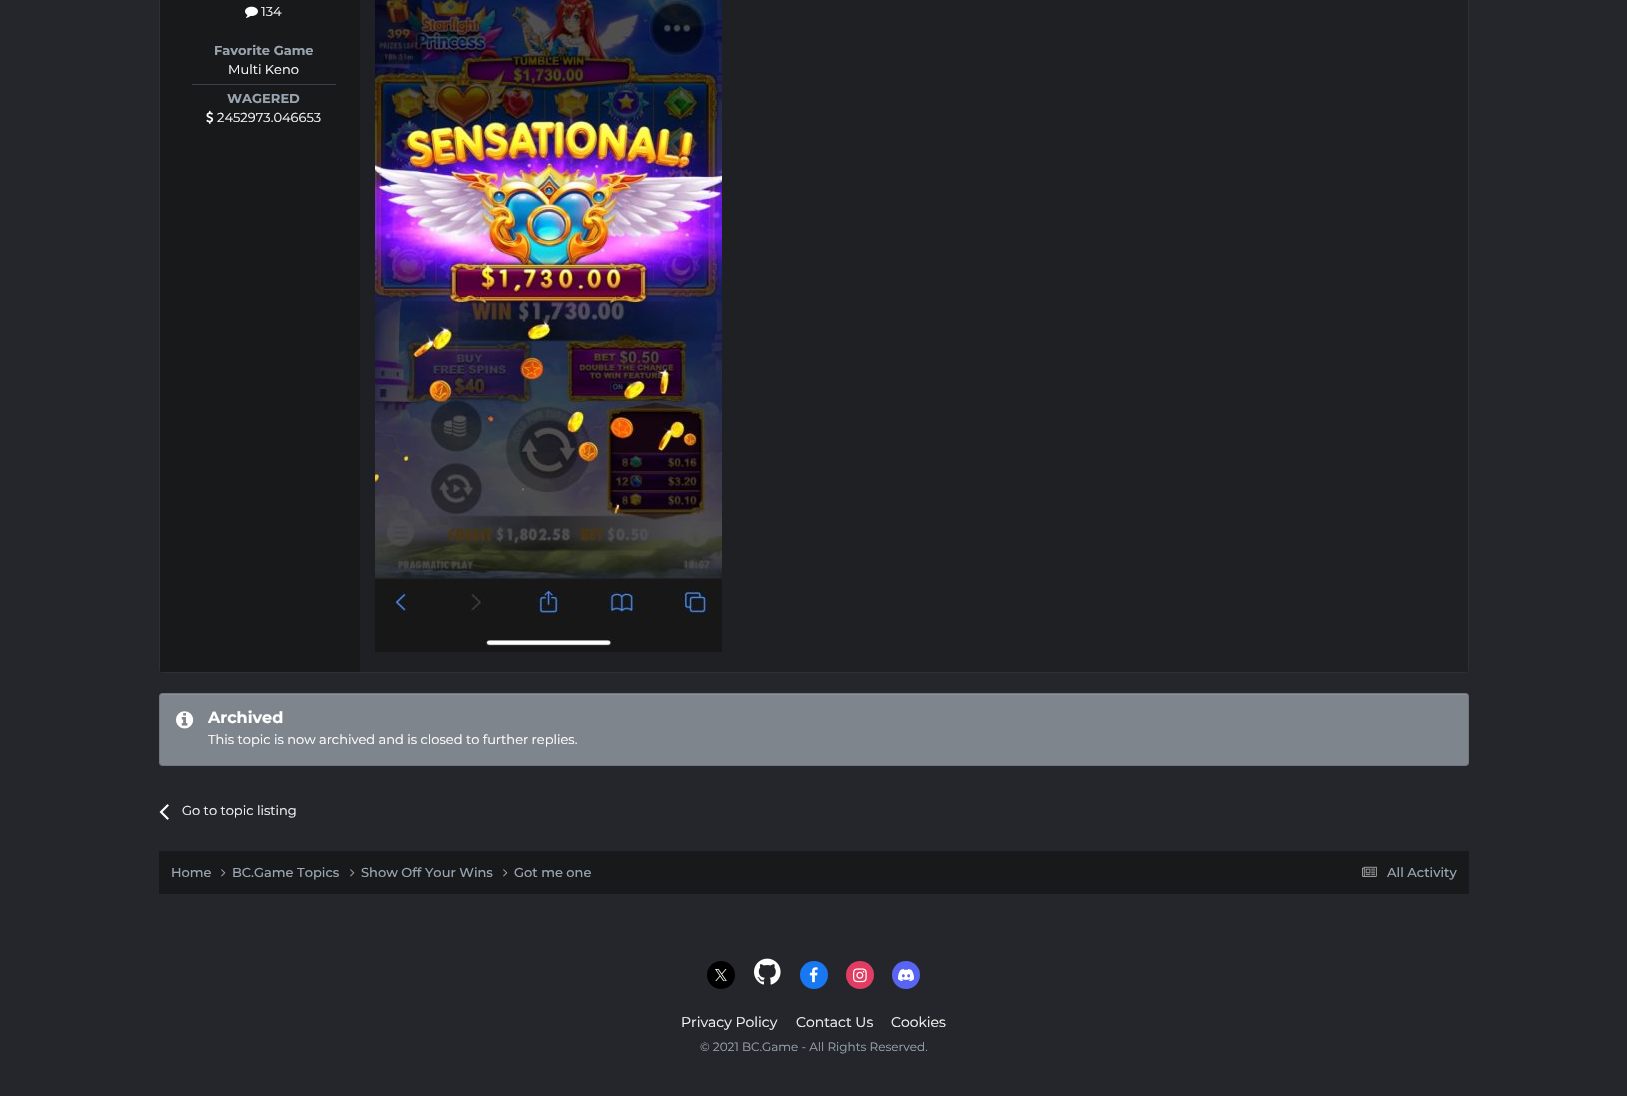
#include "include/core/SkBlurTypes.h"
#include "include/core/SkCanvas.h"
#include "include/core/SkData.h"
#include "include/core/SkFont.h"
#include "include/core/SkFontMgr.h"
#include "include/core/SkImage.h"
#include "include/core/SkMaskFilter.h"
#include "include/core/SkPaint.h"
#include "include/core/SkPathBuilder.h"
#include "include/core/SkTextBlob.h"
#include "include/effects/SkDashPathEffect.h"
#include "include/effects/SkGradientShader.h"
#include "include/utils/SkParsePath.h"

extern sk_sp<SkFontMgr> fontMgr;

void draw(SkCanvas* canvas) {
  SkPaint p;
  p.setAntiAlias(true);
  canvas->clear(SkColorSetRGB(36, 38, 43));
  p.setStyle(SkPaint::kStroke_Style);
  p.setStrokeWidth(1);
  p.setColor(SkColorSetRGB(45, 48, 53));
  canvas->drawRoundRect(SkRect::MakeLTRB(159.5f, -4.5f, 1468.5f, 672.5f), 3.5f, 3.5f, p);
  p.setStyle(SkPaint::kFill_Style);
  p.setColor(SkColorSetRGB(23, 25, 27));
  canvas->drawRect(SkRect::MakeLTRB(160, 0, 360, 672), p);
  canvas->drawImageRect(SkImages::DeferredFromEncodedData(SkData::MakeFromFileName("images/1.png")), SkRect::MakeLTRB(245, 6, 258, 18), SkSamplingOptions());
  p.setColor(SkColorSetRGB(60, 64, 74));
  canvas->drawRect(SkRect::MakeLTRB(192, 84, 336, 85), p);
  canvas->drawImageRect(SkImages::DeferredFromEncodedData(SkData::MakeFromFileName("images/2.png")), SkRect::MakeLTRB(206, 110, 214, 124), SkSamplingOptions());
  p.setColor(SkColorSetRGB(30, 32, 36));
  canvas->drawRect(SkRect::MakeLTRB(360, 0, 1468, 672), p);
  canvas->drawImageRect(SkImages::DeferredFromEncodedData(SkData::MakeFromFileName("images/3.png")), SkRect::MakeLTRB(375, 0, 722, 652), SkSamplingOptions());
  p.setColor(SkColorSetRGB(127, 133, 141));
  canvas->drawRoundRect(SkRect::MakeLTRB(159, 693, 1469, 766), 4, 4, p);
  p.setColor(SkColorSetRGB(140, 145, 152));
  canvas->drawPath(SkPathBuilder().moveTo(163, 695).lineTo(1465, 695).cubicTo(1467, 695, 1468, 696, 1468, 698).lineTo(1468, 697).cubicTo(1468, 695, 1467, 694, 1465, 694).lineTo(163, 694).cubicTo(161, 694, 160, 695, 160, 697).lineTo(160, 698).cubicTo(160, 696, 161, 695, 163, 695).close().detach(), p);
  p.setStyle(SkPaint::kStroke_Style);
  p.setColor(SkColorSetARGB(26, 0, 0, 0));
  canvas->drawRoundRect(SkRect::MakeLTRB(159.5f, 693.5f, 1468.5f, 765.5f), 3.5f, 3.5f, p);
  canvas->drawImageRect(SkImages::DeferredFromEncodedData(SkData::MakeFromFileName("images/4.png")), SkRect::MakeLTRB(176, 711, 194, 729), SkSamplingOptions());
  canvas->drawImageRect(SkImages::DeferredFromEncodedData(SkData::MakeFromFileName("images/5.png")), SkRect::MakeLTRB(159, 804, 169, 820), SkSamplingOptions());
  p.setStyle(SkPaint::kFill_Style);
  p.setColor(SkColorSetRGB(23, 25, 27));
  canvas->drawRect(SkRect::MakeLTRB(159, 851, 1469, 894), p);
  canvas->drawImageRect(SkImages::DeferredFromEncodedData(SkData::MakeFromFileName("images/6.png")), SkRect::MakeLTRB(221, 869, 226, 877), SkSamplingOptions());
  canvas->drawImageRect(SkImages::DeferredFromEncodedData(SkData::MakeFromFileName("images/6.png")), SkRect::MakeLTRB(350, 869, 355, 877), SkSamplingOptions());
  canvas->drawImageRect(SkImages::DeferredFromEncodedData(SkData::MakeFromFileName("images/6.png")), SkRect::MakeLTRB(503, 869, 508, 877), SkSamplingOptions());
  canvas->drawImageRect(SkImages::DeferredFromEncodedData(SkData::MakeFromFileName("images/7.png")), SkRect::MakeLTRB(1362, 866, 1377, 877), SkSamplingOptions());
  p.setColor(SK_ColorBLACK);
  canvas->drawCircle(721, 975, 14, p);
  canvas->drawImageRect(SkImages::DeferredFromEncodedData(SkData::MakeFromFileName("images/8.png")), SkRect::MakeLTRB(715, 969, 727, 981), SkSamplingOptions());
  canvas->drawImageRect(SkImages::DeferredFromEncodedData(SkData::MakeFromFileName("images/9.png")), SkRect::MakeLTRB(754, 958, 781, 985), SkSamplingOptions());
  p.setColor(SkColorSetRGB(23, 120, 242));
  canvas->drawCircle(814, 975, 14, p);
  canvas->drawImageRect(SkImages::DeferredFromEncodedData(SkData::MakeFromFileName("images/10.png")), SkRect::MakeLTRB(809, 967, 818, 983), SkSamplingOptions());
  p.setColor(SkColorSetRGB(225, 61, 98));
  canvas->drawCircle(860, 975, 14, p);
  canvas->drawImageRect(SkImages::DeferredFromEncodedData(SkData::MakeFromFileName("images/11.png")), SkRect::MakeLTRB(853, 968, 867, 983), SkSamplingOptions());
  p.setColor(SkColorSetRGB(88, 101, 242));
  canvas->drawCircle(906, 975, 14, p);
  canvas->drawImageRect(SkImages::DeferredFromEncodedData(SkData::MakeFromFileName("images/12.png")), SkRect::MakeLTRB(898, 969, 914, 981), SkSamplingOptions());
  SkFont font1(fontMgr->matchFamilyStyle("Montserrat", SkFontStyle::Normal()), 13);
  font1.setSubpixel(true);
  p.setColor(SkColorSetRGB(245, 246, 247));
  canvas->drawString("134", 261, 16, font1, p);
  SkFont font2(fontMgr->matchFamilyStyle("Montserrat", SkFontStyle::Bold()), 13);
  font2.setSubpixel(true);
  p.setColor(SkColorSetRGB(153, 164, 176));
  canvas->drawString("Favorite Game", 214, 55, font2, p);
  p.setColor(SK_ColorWHITE);
  canvas->drawString("Multi Keno", 228, 74, font1, p);
  p.setColor(SkColorSetRGB(153, 164, 176));
  canvas->drawString("WAGERED", 227, 103, font2, p);
  p.setColor(SkColorSetRGB(245, 246, 247));
  canvas->drawString("2452973.046653", 217, 122, font1, p);
  SkFont font3(fontMgr->matchFamilyStyle("Montserrat", SkFontStyle::Bold()), 16);
  font3.setSubpixel(true);
  p.setColor(SK_ColorWHITE);
  canvas->drawString("Archived", 208, 723, font3, p);
  canvas->drawString("This topic is now archived and is closed to further replies.", 208, 744, font1, p);
  p.setColor(SkColorSetRGB(245, 246, 247));
  canvas->drawString("Go to topic listing", 182, 815, font1, p);
  SkFont font4(fontMgr->matchFamilyStyle("Montserrat", SkFontStyle(500, SkFontStyle::kNormal_Width, SkFontStyle::kUpright_Slant)), 13);
  font4.setSubpixel(true);
  p.setColor(SkColorSetRGB(153, 164, 176));
  canvas->drawString("Home", 171, 877, font4, p);
  canvas->drawString("BC.Game Topics", 232, 877, font4, p);
  canvas->drawString("Show Off Your Wins", 361, 877, font4, p);
  canvas->drawString("Got me one", 514, 877, font4, p);
  canvas->drawString("All Activity", 1387, 877, font4, p);
  SkFont font5(fontMgr->matchFamilyStyle("Montserrat", SkFontStyle::Normal()), 14);
  font5.setSubpixel(true);
  p.setColor(SkColorSetRGB(245, 246, 247));
  canvas->drawString("Privacy Policy", 681, 1027, font5, p);
  canvas->drawString("Contact Us", 796, 1027, font5, p);
  canvas->drawString("Cookies", 891, 1027, font5, p);
  SkFont font6(fontMgr->matchFamilyStyle("Montserrat", SkFontStyle::Normal()), 12);
  font6.setSubpixel(true);
  p.setColor(SkColorSetRGB(153, 164, 176));
  canvas->drawString("© 2021 BC.Game - All Rights Reserved.", 700, 1051, font6, p);
}
